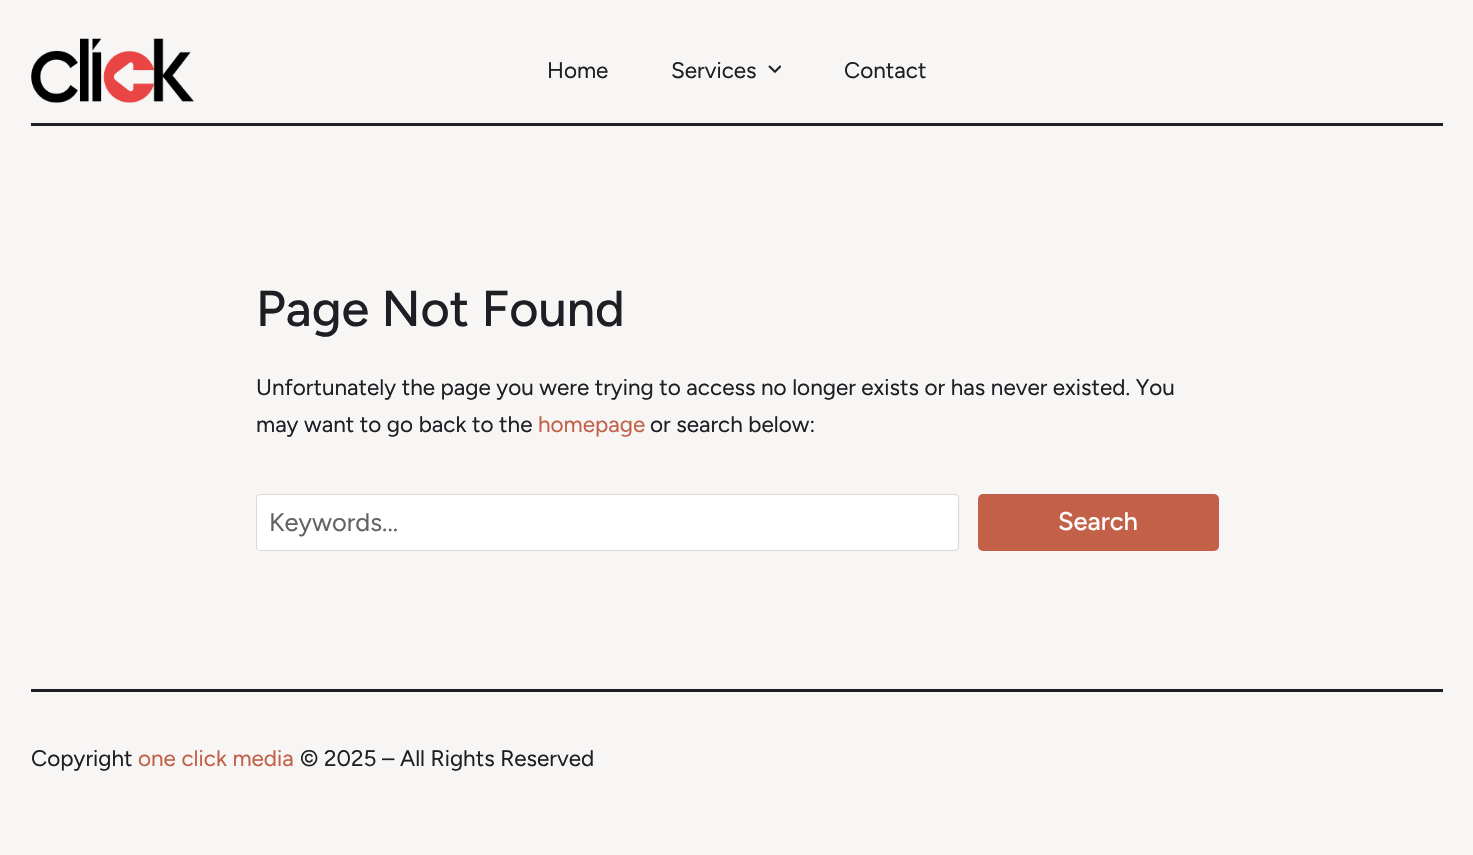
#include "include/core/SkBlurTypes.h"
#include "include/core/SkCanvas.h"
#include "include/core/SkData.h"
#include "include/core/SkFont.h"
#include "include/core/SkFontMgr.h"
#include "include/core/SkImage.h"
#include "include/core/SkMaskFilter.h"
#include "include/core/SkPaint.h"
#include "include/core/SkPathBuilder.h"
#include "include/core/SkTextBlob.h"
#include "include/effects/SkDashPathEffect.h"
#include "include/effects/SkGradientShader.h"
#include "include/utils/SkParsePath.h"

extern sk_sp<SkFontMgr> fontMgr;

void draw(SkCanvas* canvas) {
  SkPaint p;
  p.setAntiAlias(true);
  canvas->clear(SkColorSetRGB(247, 246, 245));
  p.setColor(SkColorSetRGB(29, 31, 37));
  canvas->drawRect(SkRect::MakeLTRB(31, 123, 1443, 126), p);
  canvas->drawImageRect(SkImages::DeferredFromEncodedData(SkData::MakeFromFileName("images/1.png")), SkRect::MakeLTRB(31, 38, 194, 103), SkSamplingOptions());
  canvas->drawImageRect(SkImages::DeferredFromEncodedData(SkData::MakeFromFileName("images/2.png")), SkRect::MakeLTRB(768, 65, 781, 73), SkSamplingOptions());
  p.setColor(SK_ColorWHITE);
  canvas->drawRoundRect(SkRect::MakeLTRB(256.5f, 494.5f, 958.5f, 550.5f), 3.5f, 3.5f, p);
  p.setStyle(SkPaint::kStroke_Style);
  p.setStrokeWidth(1);
  p.setColor(SkColorSetRGB(220, 215, 211));
  canvas->drawRoundRect(SkRect::MakeLTRB(256.5f, 494.5f, 958.5f, 550.5f), 3.5f, 3.5f, p);
  p.setStyle(SkPaint::kFill_Style);
  p.setColor(SkColorSetRGB(194, 97, 72));
  canvas->drawRoundRect(SkRect::MakeLTRB(978, 494, 1219, 551), 5, 5, p);
  p.setColor(SkColorSetRGB(29, 31, 37));
  canvas->drawRect(SkRect::MakeLTRB(31, 689, 1443, 692), p);
  SkFont font1(fontMgr->matchFamilyStyle("Figtree", SkFontStyle::Normal()), 22.5f);
  font1.setSubpixel(true);
  canvas->drawString("Home", 547, 78, font1, p);
  canvas->drawString("Services", 671, 78, font1, p);
  canvas->drawString("Contact", 844, 78, font1, p);
  SkFont font2(fontMgr->matchFamilyStyle("Figtree", SkFontStyle(500, SkFontStyle::kNormal_Width, SkFontStyle::kUpright_Slant)), 50.5f);
  font2.setSubpixel(true);
  canvas->drawString("Page Not Found", 256, 326, font2, p);
  canvas->drawString("Unfortunately the page you were trying to access no longer exists or has never existed. You", 256, 395, font1, p);
  canvas->drawString("may want to go back to the", 256, 432, font1, p);
  p.setColor(SkColorSetRGB(194, 97, 72));
  canvas->drawString("homepage", 538, 432, font1, p);
  p.setColor(SkColorSetRGB(29, 31, 37));
  canvas->drawString("or search below:", 650, 432, font1, p);
  SkFont font3(fontMgr->matchFamilyStyle("Figtree", SkFontStyle::Normal()), 25.5f);
  font3.setSubpixel(true);
  p.setColor(SkColorSetRGB(97, 98, 102));
  canvas->drawString("Keywords...", 269, 531, font3, p);
  SkFont font4(fontMgr->matchFamilyStyle("Figtree", SkFontStyle(500, SkFontStyle::kNormal_Width, SkFontStyle::kUpright_Slant)), 25.5f);
  font4.setSubpixel(true);
  p.setColor(SK_ColorWHITE);
  canvas->drawString("Search", 1058, 530, font4, p);
  p.setColor(SkColorSetRGB(29, 31, 37));
  canvas->drawString("Copyright", 31, 766, font1, p);
  p.setColor(SkColorSetRGB(194, 97, 72));
  canvas->drawString("one click media", 138, 766, font1, p);
  p.setColor(SkColorSetRGB(29, 31, 37));
  canvas->drawString("© 2025 – All Rights Reserved", 300, 766, font1, p);
}
